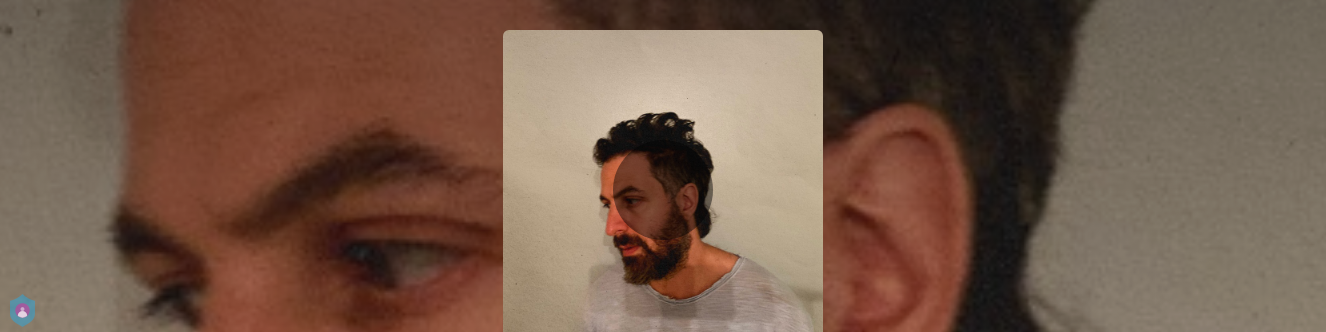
#include "include/core/SkBlurTypes.h"
#include "include/core/SkCanvas.h"
#include "include/core/SkData.h"
#include "include/core/SkFont.h"
#include "include/core/SkFontMgr.h"
#include "include/core/SkImage.h"
#include "include/core/SkMaskFilter.h"
#include "include/core/SkPaint.h"
#include "include/core/SkPathBuilder.h"
#include "include/core/SkTextBlob.h"
#include "include/effects/SkDashPathEffect.h"
#include "include/effects/SkGradientShader.h"
#include "include/utils/SkParsePath.h"

extern sk_sp<SkFontMgr> fontMgr;

void draw(SkCanvas* canvas) {
  SkPaint p;
  p.setAntiAlias(true);
  canvas->clear(SK_ColorWHITE);
  canvas->drawImageRect(SkImages::DeferredFromEncodedData(SkData::MakeFromFileName("images/1.png")), SkRect::MakeLTRB(0, 0, 1326, 332), SkSamplingOptions());
  canvas->drawImageRect(SkImages::DeferredFromEncodedData(SkData::MakeFromFileName("images/2.png")), SkRect::MakeLTRB(503, 30, 823, 332), SkSamplingOptions());
  p.setColor(SkColorSetARGB(115, 0, 0, 0));
  canvas->drawCircle(663, 190, 50, p);
  canvas->drawImageRect(SkImages::DeferredFromEncodedData(SkData::MakeFromFileName("images/3.png")), SkRect::MakeLTRB(10, 294, 35, 327), SkSamplingOptions());
}
